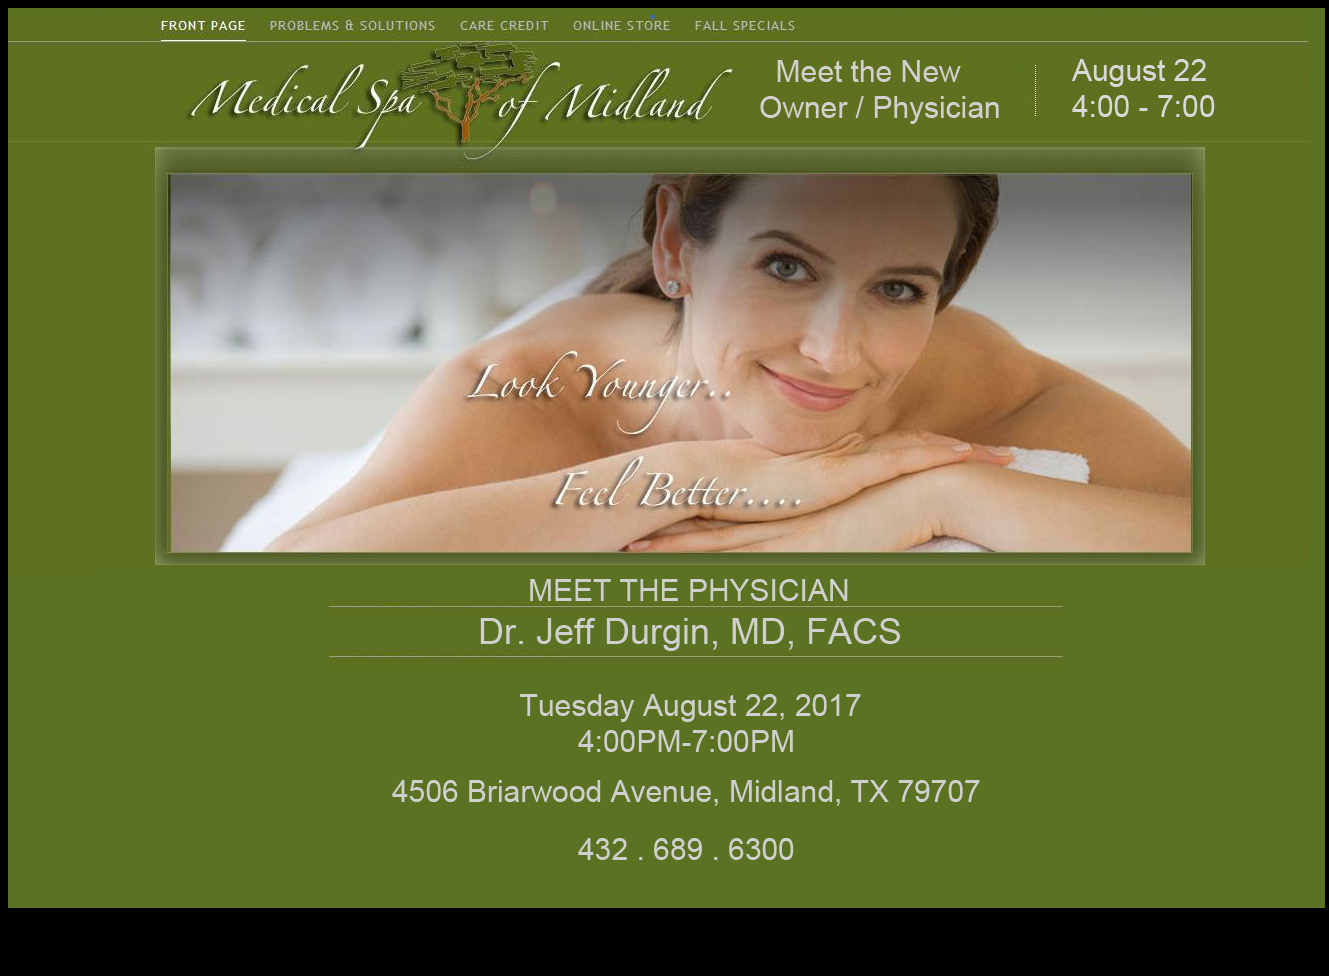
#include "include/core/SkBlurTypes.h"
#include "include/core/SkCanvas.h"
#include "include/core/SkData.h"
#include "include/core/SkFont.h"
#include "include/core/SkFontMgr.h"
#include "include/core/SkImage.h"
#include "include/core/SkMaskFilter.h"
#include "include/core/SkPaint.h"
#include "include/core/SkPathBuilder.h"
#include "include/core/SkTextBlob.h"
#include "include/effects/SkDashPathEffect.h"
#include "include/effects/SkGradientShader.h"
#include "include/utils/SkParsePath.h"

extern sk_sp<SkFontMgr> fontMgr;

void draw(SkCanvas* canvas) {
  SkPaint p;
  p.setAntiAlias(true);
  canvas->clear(SK_ColorBLACK);
  canvas->drawImageRect(SkImages::DeferredFromEncodedData(SkData::MakeFromFileName("images/1.png")), SkRect::MakeLTRB(8, 8, 1325, 908), SkSamplingOptions());
}
